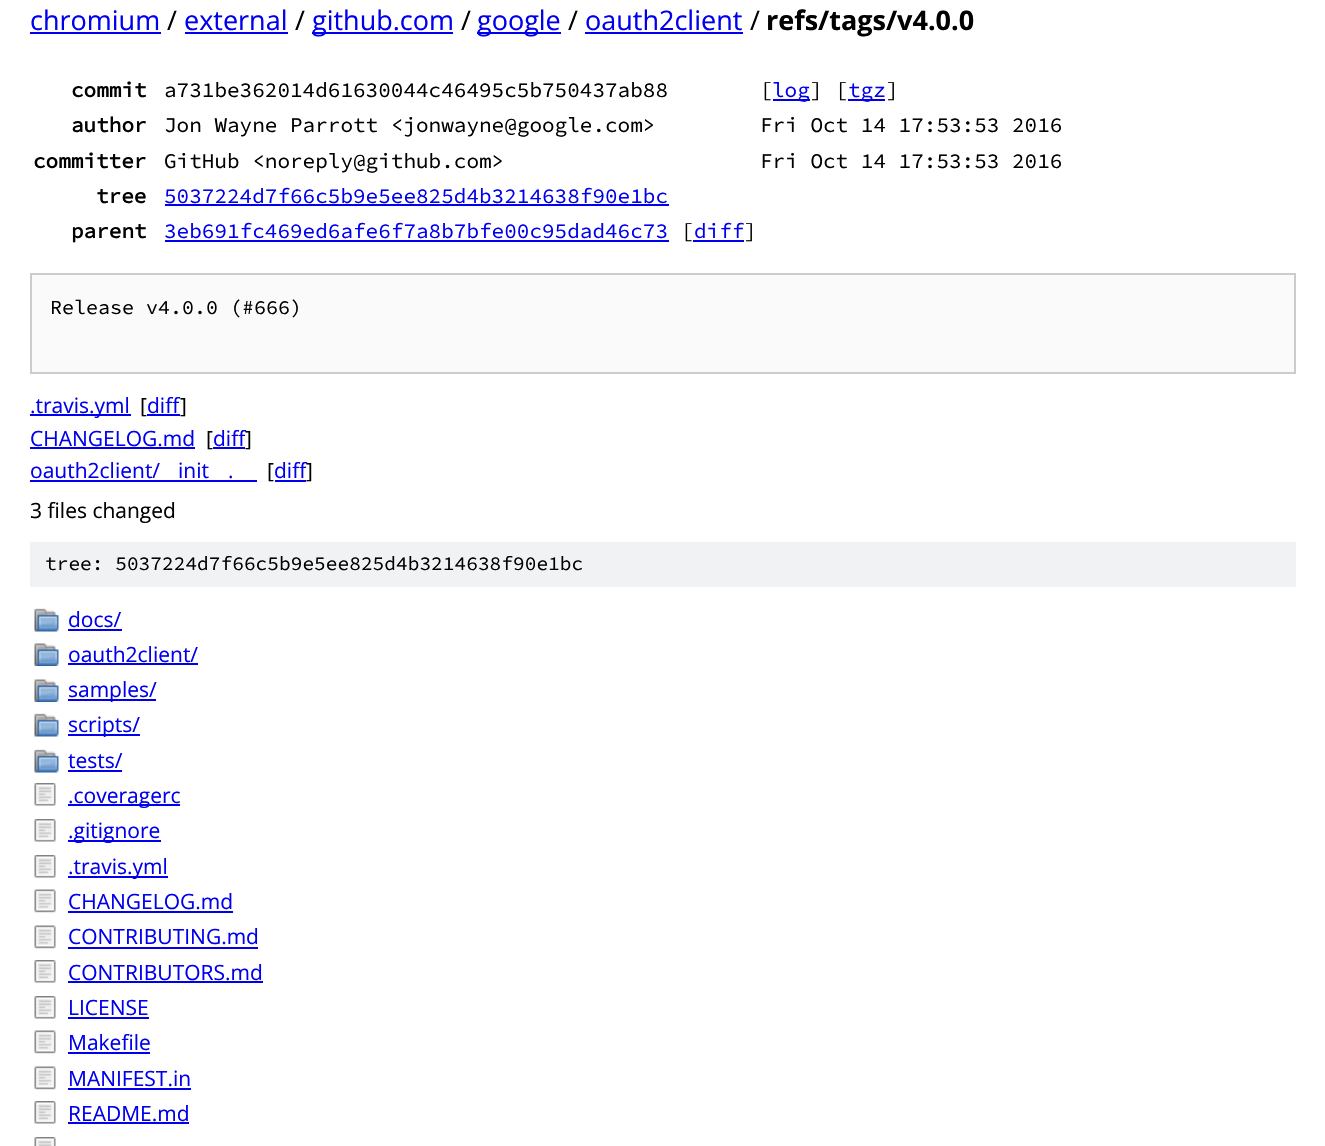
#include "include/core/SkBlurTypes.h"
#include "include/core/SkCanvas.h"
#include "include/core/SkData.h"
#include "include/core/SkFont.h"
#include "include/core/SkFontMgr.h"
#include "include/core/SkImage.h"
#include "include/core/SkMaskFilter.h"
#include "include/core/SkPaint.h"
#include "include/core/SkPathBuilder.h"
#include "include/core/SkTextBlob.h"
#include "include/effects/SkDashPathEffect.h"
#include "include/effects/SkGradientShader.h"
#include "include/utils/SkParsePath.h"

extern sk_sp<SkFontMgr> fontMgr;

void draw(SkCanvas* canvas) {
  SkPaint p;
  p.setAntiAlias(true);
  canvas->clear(SK_ColorWHITE);
  p.setColor(SkColorSetRGB(0, 0, 238));
  canvas->drawRect(SkRect::MakeLTRB(30, 32, 161, 34), p);
  canvas->drawRect(SkRect::MakeLTRB(185, 32, 288, 34), p);
  canvas->drawRect(SkRect::MakeLTRB(312, 32, 453, 34), p);
  canvas->drawRect(SkRect::MakeLTRB(477, 32, 561, 34), p);
  canvas->drawRect(SkRect::MakeLTRB(585, 32, 743, 34), p);
  canvas->drawRect(SkRect::MakeLTRB(773, 99, 810, 101), p);
  canvas->drawRect(SkRect::MakeLTRB(848, 99, 885, 101), p);
  canvas->drawRect(SkRect::MakeLTRB(165, 204, 669, 206), p);
  canvas->drawRect(SkRect::MakeLTRB(165, 240, 669, 242), p);
  canvas->drawRect(SkRect::MakeLTRB(693, 240, 744, 242), p);
  p.setColor(SkColorSetRGB(250, 250, 250));
  canvas->drawRect(SkRect::MakeLTRB(31, 274, 1295, 373), p);
  p.setStyle(SkPaint::kStroke_Style);
  p.setStrokeWidth(2);
  p.setColor(SkColorSetRGB(204, 204, 204));
  canvas->drawRect(SkRect::MakeLTRB(31, 274, 1295, 373), p);
  p.setStyle(SkPaint::kFill_Style);
  p.setColor(SkColorSetRGB(0, 0, 238));
  canvas->drawRect(SkRect::MakeLTRB(30, 414, 131, 416), p);
  canvas->drawRect(SkRect::MakeLTRB(147, 414, 180, 416), p);
  canvas->drawRect(SkRect::MakeLTRB(30, 447, 195, 449), p);
  canvas->drawRect(SkRect::MakeLTRB(213, 447, 245, 449), p);
  canvas->drawRect(SkRect::MakeLTRB(30, 480, 257, 482), p);
  canvas->drawRect(SkRect::MakeLTRB(275, 480, 306, 482), p);
  p.setColor(SkColorSetRGB(241, 242, 243));
  canvas->drawRect(SkRect::MakeLTRB(30, 542, 1296, 587), p);
  canvas->drawImageRect(SkImages::DeferredFromEncodedData(SkData::MakeFromFileName("images/1.png")), SkRect::MakeLTRB(34, 608, 59, 632), SkSamplingOptions());
  p.setColor(SkColorSetRGB(0, 0, 238));
  canvas->drawRect(SkRect::MakeLTRB(68, 629, 122, 631), p);
  canvas->drawImageRect(SkImages::DeferredFromEncodedData(SkData::MakeFromFileName("images/2.png")), SkRect::MakeLTRB(34, 643, 59, 666), SkSamplingOptions());
  canvas->drawRect(SkRect::MakeLTRB(68, 663, 198, 665), p);
  canvas->drawImageRect(SkImages::DeferredFromEncodedData(SkData::MakeFromFileName("images/2.png")), SkRect::MakeLTRB(34, 679, 59, 702), SkSamplingOptions());
  canvas->drawRect(SkRect::MakeLTRB(68, 699, 156, 701), p);
  canvas->drawImageRect(SkImages::DeferredFromEncodedData(SkData::MakeFromFileName("images/1.png")), SkRect::MakeLTRB(34, 713, 59, 737), SkSamplingOptions());
  canvas->drawRect(SkRect::MakeLTRB(68, 734, 140, 736), p);
  canvas->drawImageRect(SkImages::DeferredFromEncodedData(SkData::MakeFromFileName("images/1.png")), SkRect::MakeLTRB(34, 749, 59, 773), SkSamplingOptions());
  canvas->drawRect(SkRect::MakeLTRB(68, 770, 122, 772), p);
  canvas->drawImageRect(SkImages::DeferredFromEncodedData(SkData::MakeFromFileName("images/3.png")), SkRect::MakeLTRB(34, 783, 56, 806), SkSamplingOptions());
  canvas->drawRect(SkRect::MakeLTRB(68, 804, 180, 806), p);
  canvas->drawImageRect(SkImages::DeferredFromEncodedData(SkData::MakeFromFileName("images/3.png")), SkRect::MakeLTRB(34, 819, 56, 842), SkSamplingOptions());
  canvas->drawRect(SkRect::MakeLTRB(68, 840, 161, 842), p);
  canvas->drawImageRect(SkImages::DeferredFromEncodedData(SkData::MakeFromFileName("images/3.png")), SkRect::MakeLTRB(34, 855, 56, 878), SkSamplingOptions());
  canvas->drawRect(SkRect::MakeLTRB(68, 876, 168, 878), p);
  canvas->drawImageRect(SkImages::DeferredFromEncodedData(SkData::MakeFromFileName("images/4.png")), SkRect::MakeLTRB(34, 889, 56, 913), SkSamplingOptions());
  canvas->drawRect(SkRect::MakeLTRB(68, 911, 233, 913), p);
  canvas->drawImageRect(SkImages::DeferredFromEncodedData(SkData::MakeFromFileName("images/4.png")), SkRect::MakeLTRB(34, 925, 56, 949), SkSamplingOptions());
  canvas->drawRect(SkRect::MakeLTRB(68, 947, 258, 949), p);
  canvas->drawImageRect(SkImages::DeferredFromEncodedData(SkData::MakeFromFileName("images/3.png")), SkRect::MakeLTRB(34, 960, 56, 983), SkSamplingOptions());
  canvas->drawRect(SkRect::MakeLTRB(68, 981, 263, 983), p);
  canvas->drawImageRect(SkImages::DeferredFromEncodedData(SkData::MakeFromFileName("images/3.png")), SkRect::MakeLTRB(34, 996, 56, 1019), SkSamplingOptions());
  canvas->drawRect(SkRect::MakeLTRB(68, 1017, 149, 1019), p);
  canvas->drawImageRect(SkImages::DeferredFromEncodedData(SkData::MakeFromFileName("images/4.png")), SkRect::MakeLTRB(34, 1030, 56, 1054), SkSamplingOptions());
  canvas->drawRect(SkRect::MakeLTRB(68, 1052, 150, 1054), p);
  canvas->drawImageRect(SkImages::DeferredFromEncodedData(SkData::MakeFromFileName("images/4.png")), SkRect::MakeLTRB(34, 1066, 56, 1090), SkSamplingOptions());
  canvas->drawRect(SkRect::MakeLTRB(68, 1088, 191, 1090), p);
  canvas->drawImageRect(SkImages::DeferredFromEncodedData(SkData::MakeFromFileName("images/3.png")), SkRect::MakeLTRB(34, 1101, 56, 1124), SkSamplingOptions());
  canvas->drawRect(SkRect::MakeLTRB(68, 1122, 189, 1124), p);
  canvas->drawImageRect(SkImages::DeferredFromEncodedData(SkData::MakeFromFileName("images/5.png")), SkRect::MakeLTRB(34, 1137, 56, 1146), SkSamplingOptions());
  SkFont font1(fontMgr->matchFamilyStyle("Open Sans", SkFontStyle::Normal()), 27);
  font1.setSubpixel(true);
  canvas->drawString("chromium", 30, 30, font1, p);
  p.setColor(SK_ColorBLACK);
  canvas->drawString("/", 167, 30, font1, p);
  p.setColor(SkColorSetRGB(0, 0, 238));
  canvas->drawString("external", 184, 30, font1, p);
  p.setColor(SK_ColorBLACK);
  canvas->drawString("/", 295, 30, font1, p);
  p.setColor(SkColorSetRGB(0, 0, 238));
  canvas->drawString("github.com", 312, 30, font1, p);
  p.setColor(SK_ColorBLACK);
  canvas->drawString("/", 461, 30, font1, p);
  p.setColor(SkColorSetRGB(0, 0, 238));
  canvas->drawString("google", 477, 30, font1, p);
  p.setColor(SK_ColorBLACK);
  canvas->drawString("/", 568, 30, font1, p);
  p.setColor(SkColorSetRGB(0, 0, 238));
  canvas->drawString("oauth2client", 585, 30, font1, p);
  p.setColor(SK_ColorBLACK);
  canvas->drawString("/", 750, 30, font1, p);
  SkFont font2(fontMgr->matchFamilyStyle("Open Sans", SkFontStyle::Bold()), 27);
  font2.setSubpixel(true);
  canvas->drawString("refs/tags/v4.0.0", 766, 30, font2, p);
  SkFont font3(fontMgr->matchFamilyStyle("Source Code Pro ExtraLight", SkFontStyle::Bold()), 21);
  font3.setSubpixel(true);
  canvas->drawString("commit", 71, 97, font3, p);
  SkFont font4(fontMgr->matchFamilyStyle("Source Code Pro ExtraLight", SkFontStyle(200, SkFontStyle::kNormal_Width, SkFontStyle::kUpright_Slant)), 21);
  font4.setSubpixel(true);
  canvas->drawString("a731be362014d61630044c46495c5b750437ab88", 164, 97, font4, p);
  canvas->drawString("[", 760, 97, font4, p);
  p.setColor(SkColorSetRGB(0, 0, 238));
  canvas->drawString("log", 772, 97, font4, p);
  p.setColor(SK_ColorBLACK);
  canvas->drawString("] [", 810, 97, font4, p);
  p.setColor(SkColorSetRGB(0, 0, 238));
  canvas->drawString("tgz", 848, 97, font4, p);
  p.setColor(SK_ColorBLACK);
  canvas->drawString("]", 886, 97, font4, p);
  canvas->drawString("author", 71, 132, font3, p);
  canvas->drawString("Jon Wayne Parrott <jonwayne@google.com>", 164, 132, font4, p);
  canvas->drawString("Fri Oct 14 17:53:53 2016", 760, 132, font4, p);
  canvas->drawString("committer", 33, 168, font3, p);
  canvas->drawString("GitHub <noreply@github.com>", 164, 168, font4, p);
  canvas->drawString("Fri Oct 14 17:53:53 2016", 760, 168, font4, p);
  canvas->drawString("tree", 96, 203, font3, p);
  p.setColor(SkColorSetRGB(0, 0, 238));
  canvas->drawString("5037224d7f66c5b9e5ee825d4b3214638f90e1bc", 164, 203, font4, p);
  p.setColor(SK_ColorBLACK);
  canvas->drawString("parent", 71, 238, font3, p);
  p.setColor(SkColorSetRGB(0, 0, 238));
  canvas->drawString("3eb691fc469ed6afe6f7a8b7bfe00c95dad46c73", 164, 238, font4, p);
  p.setColor(SK_ColorBLACK);
  canvas->drawString("[", 681, 238, font4, p);
  p.setColor(SkColorSetRGB(0, 0, 238));
  canvas->drawString("diff", 694, 238, font4, p);
  p.setColor(SK_ColorBLACK);
  canvas->drawString("]", 744, 238, font4, p);
  SkFont font5(fontMgr->matchFamilyStyle("Source Code Pro ExtraLight", SkFontStyle(200, SkFontStyle::kNormal_Width, SkFontStyle::kUpright_Slant)), 20);
  font5.setSubpixel(true);
  canvas->drawString("Release v4.0.0 (#666)", 50, 314, font5, p);
  SkFont font6(fontMgr->matchFamilyStyle("Open Sans", SkFontStyle::Normal()), 21);
  font6.setSubpixel(true);
  p.setColor(SkColorSetRGB(0, 0, 238));
  canvas->drawString(".travis.yml", 30, 413, font6, p);
  p.setColor(SK_ColorBLACK);
  canvas->drawString("[", 140, 413, font6, p);
  p.setColor(SkColorSetRGB(0, 0, 238));
  canvas->drawString("diff", 147, 413, font6, p);
  p.setColor(SK_ColorBLACK);
  canvas->drawString("]", 180, 413, font6, p);
  p.setColor(SkColorSetRGB(0, 0, 238));
  canvas->drawString("CHANGELOG.md", 30, 446, font6, p);
  p.setColor(SK_ColorBLACK);
  canvas->drawString("[", 206, 446, font6, p);
  p.setColor(SkColorSetRGB(0, 0, 238));
  canvas->drawString("diff", 213, 446, font6, p);
  p.setColor(SK_ColorBLACK);
  canvas->drawString("]", 245, 446, font6, p);
  p.setColor(SkColorSetRGB(0, 0, 238));
  canvas->drawString("oauth2client/", 30, 478, font6, p);
  canvas->drawString("init", 178, 478, font6, p);
  canvas->drawString(".", 228, 478, font6, p);
  p.setColor(SK_ColorBLACK);
  canvas->drawString("[", 267, 478, font6, p);
  p.setColor(SkColorSetRGB(0, 0, 238));
  canvas->drawString("diff", 274, 478, font6, p);
  p.setColor(SK_ColorBLACK);
  canvas->drawString("]", 306, 478, font6, p);
  canvas->drawString("3 files changed", 30, 518, font6, p);
  SkFont font7(fontMgr->matchFamilyStyle("Source Code Pro ExtraLight", SkFontStyle(200, SkFontStyle::kNormal_Width, SkFontStyle::kUpright_Slant)), 19.5f);
  font7.setSubpixel(true);
  canvas->drawString("tree: 5037224d7f66c5b9e5ee825d4b3214638f90e1bc", 45, 570, font7, p);
  p.setColor(SkColorSetRGB(0, 0, 238));
  canvas->drawString("docs/", 68, 627, font6, p);
  canvas->drawString("oauth2client/", 68, 662, font6, p);
  canvas->drawString("samples/", 68, 697, font6, p);
  canvas->drawString("scripts/", 68, 732, font6, p);
  canvas->drawString("tests/", 68, 768, font6, p);
  canvas->drawString(".coveragerc", 68, 803, font6, p);
  canvas->drawString(".gitignore", 68, 838, font6, p);
  canvas->drawString(".travis.yml", 68, 874, font6, p);
  canvas->drawString("CHANGELOG.md", 68, 909, font6, p);
  canvas->drawString("CONTRIBUTING.md", 68, 944, font6, p);
  canvas->drawString("CONTRIBUTORS.md", 68, 980, font6, p);
  canvas->drawString("LICENSE", 68, 1015, font6, p);
  canvas->drawString("Makefile", 68, 1050, font6, p);
  canvas->drawString("MANIFEST.in", 68, 1086, font6, p);
  canvas->drawString("README.md", 68, 1121, font6, p);
}
